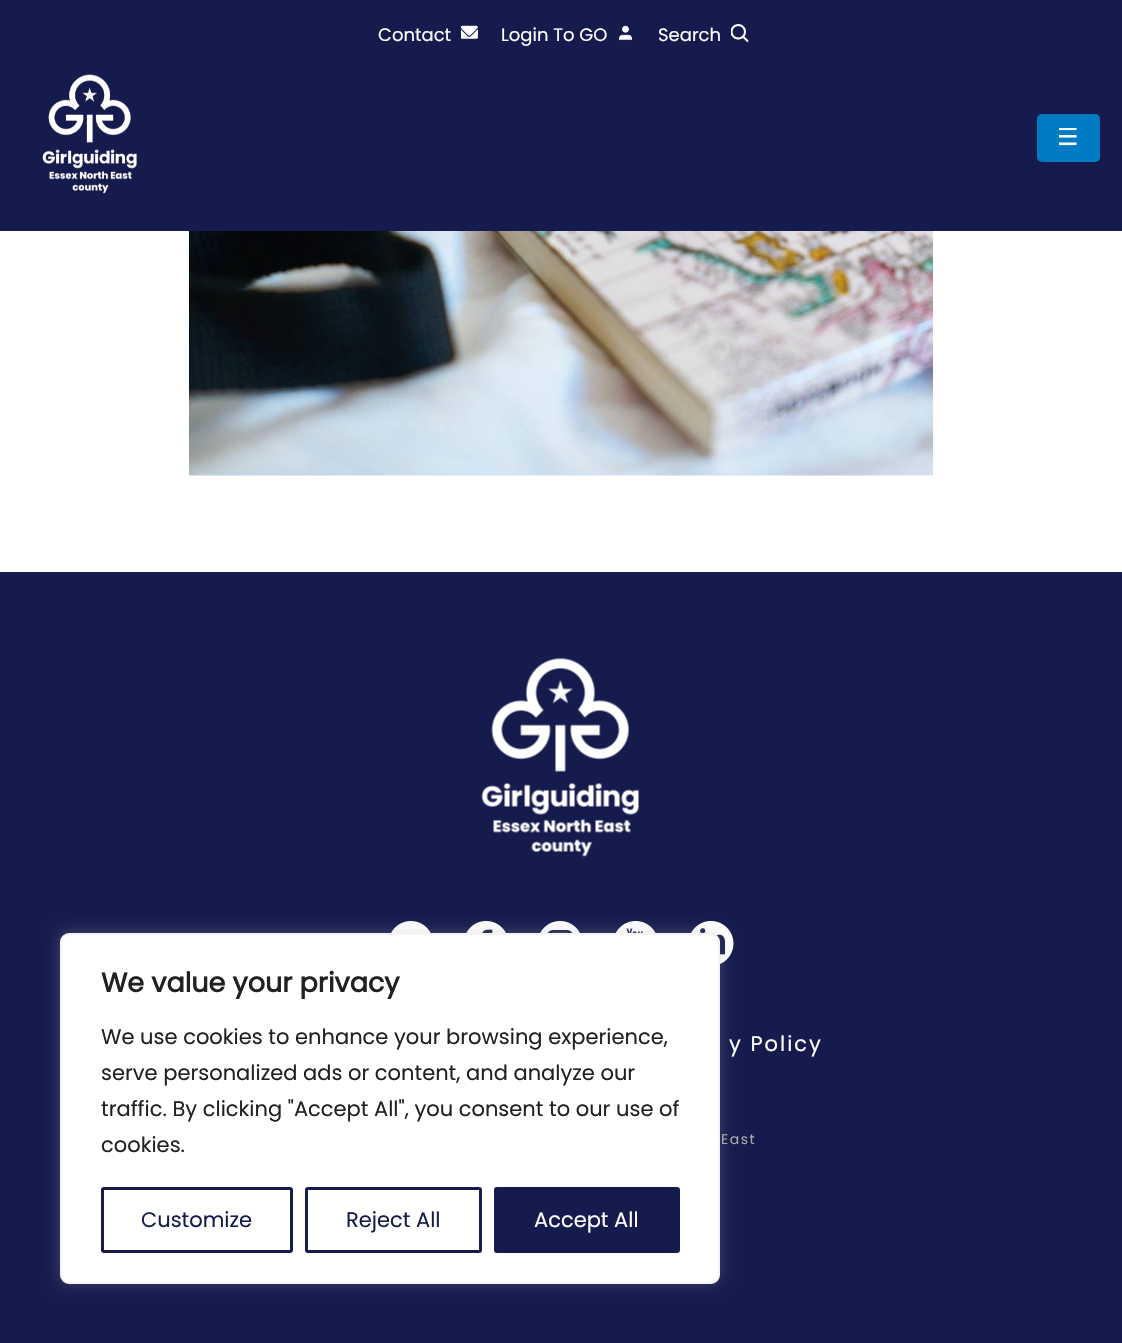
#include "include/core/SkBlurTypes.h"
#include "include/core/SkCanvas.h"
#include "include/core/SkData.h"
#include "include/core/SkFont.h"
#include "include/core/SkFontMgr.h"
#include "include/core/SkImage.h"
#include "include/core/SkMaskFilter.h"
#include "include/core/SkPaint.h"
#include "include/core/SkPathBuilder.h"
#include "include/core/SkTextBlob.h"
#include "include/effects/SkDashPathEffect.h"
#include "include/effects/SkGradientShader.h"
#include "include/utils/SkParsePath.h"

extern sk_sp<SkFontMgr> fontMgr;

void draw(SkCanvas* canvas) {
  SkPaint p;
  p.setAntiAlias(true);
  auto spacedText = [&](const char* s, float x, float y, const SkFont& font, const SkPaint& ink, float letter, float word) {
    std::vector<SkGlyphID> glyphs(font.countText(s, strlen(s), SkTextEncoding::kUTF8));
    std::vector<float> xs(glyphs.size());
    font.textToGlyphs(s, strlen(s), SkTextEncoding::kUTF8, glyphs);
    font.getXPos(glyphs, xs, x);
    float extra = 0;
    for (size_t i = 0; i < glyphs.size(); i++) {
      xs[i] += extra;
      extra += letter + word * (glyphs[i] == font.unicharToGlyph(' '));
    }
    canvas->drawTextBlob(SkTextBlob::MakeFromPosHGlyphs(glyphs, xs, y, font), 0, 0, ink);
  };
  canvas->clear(SK_ColorWHITE);
  p.setColor(SkColorSetRGB(22, 27, 78));
  canvas->drawRect(SkRect::MakeLTRB(0, 0, 1122, 231), p);
  canvas->drawImageRect(SkImages::DeferredFromEncodedData(SkData::MakeFromFileName("images/1.png")), SkRect::MakeLTRB(461, 25, 478, 39), SkSamplingOptions());
  canvas->drawImageRect(SkImages::DeferredFromEncodedData(SkData::MakeFromFileName("images/2.png")), SkRect::MakeLTRB(619, 25, 632, 41), SkSamplingOptions());
  canvas->drawImageRect(SkImages::DeferredFromEncodedData(SkData::MakeFromFileName("images/3.png")), SkRect::MakeLTRB(731, 24, 749, 42), SkSamplingOptions());
  canvas->drawImageRect(SkImages::DeferredFromEncodedData(SkData::MakeFromFileName("images/4.png")), SkRect::MakeLTRB(42, 74, 137, 194), SkSamplingOptions());
  p.setColor(SkColorSetRGB(0, 123, 196));
  canvas->drawRoundRect(SkRect::MakeLTRB(1037, 114, 1100, 162), 5, 5, p);
  canvas->drawImageRect(SkImages::DeferredFromEncodedData(SkData::MakeFromFileName("images/5.png")), SkRect::MakeLTRB(1059, 128, 1077, 146), SkSamplingOptions());
  canvas->drawImageRect(SkImages::DeferredFromEncodedData(SkData::MakeFromFileName("images/6.png")), SkRect::MakeLTRB(189, 231, 933, 476), SkSamplingOptions());
  p.setColor(SkColorSetRGB(22, 27, 78));
  canvas->drawRect(SkRect::MakeLTRB(0, 572, 1122, 1343), p);
  canvas->drawImageRect(SkImages::DeferredFromEncodedData(SkData::MakeFromFileName("images/7.png")), SkRect::MakeLTRB(481, 658, 639, 857), SkSamplingOptions());
  canvas->drawImageRect(SkImages::DeferredFromEncodedData(SkData::MakeFromFileName("images/8.png")), SkRect::MakeLTRB(391, 921, 431, 933), SkSamplingOptions());
  canvas->drawImageRect(SkImages::DeferredFromEncodedData(SkData::MakeFromFileName("images/9.png")), SkRect::MakeLTRB(466, 921, 506, 933), SkSamplingOptions());
  canvas->drawImageRect(SkImages::DeferredFromEncodedData(SkData::MakeFromFileName("images/10.png")), SkRect::MakeLTRB(540, 921, 580, 933), SkSamplingOptions());
  canvas->drawImageRect(SkImages::DeferredFromEncodedData(SkData::MakeFromFileName("images/11.png")), SkRect::MakeLTRB(615, 921, 656, 933), SkSamplingOptions());
  canvas->drawImageRect(SkImages::DeferredFromEncodedData(SkData::MakeFromFileName("images/12.png")), SkRect::MakeLTRB(691, 921, 734, 964), SkSamplingOptions());
  p.setColor(SkColorSetARGB(77, 172, 171, 171));
  p.setMaskFilter(SkMaskFilter::MakeBlur(kNormal_SkBlurStyle, 7.5f));
  canvas->drawRoundRect(SkRect::MakeLTRB(60, 932, 720, 1283), 9, 9, p);
  p.setMaskFilter(nullptr);
  p.setColor(SK_ColorWHITE);
  canvas->drawRoundRect(SkRect::MakeLTRB(61, 934, 719, 1283), 8, 8, p);
  p.setStyle(SkPaint::kStroke_Style);
  p.setStrokeWidth(2);
  p.setColor(SkColorSetRGB(244, 244, 244));
  canvas->drawRoundRect(SkRect::MakeLTRB(61, 934, 719, 1283), 8, 8, p);
  p.setStrokeWidth(3);
  p.setColor(SkColorSetRGB(22, 27, 78));
  canvas->drawRoundRect(SkRect::MakeLTRB(102.5f, 1188.5f, 291.5f, 1251.5f), 1.5f, 1.5f, p);
  canvas->drawRoundRect(SkRect::MakeLTRB(306.5f, 1188.5f, 480.5f, 1251.5f), 1.5f, 1.5f, p);
  p.setStyle(SkPaint::kFill_Style);
  canvas->drawRoundRect(SkRect::MakeLTRB(495.5f, 1188.5f, 678.5f, 1251.5f), 1.5f, 1.5f, p);
  p.setStyle(SkPaint::kStroke_Style);
  canvas->drawRoundRect(SkRect::MakeLTRB(495.5f, 1188.5f, 678.5f, 1251.5f), 1.5f, 1.5f, p);
  SkFont font1(fontMgr->matchFamilyStyle("Poppins", SkFontStyle::Normal()), 18);
  font1.setSubpixel(true);
  p.setStyle(SkPaint::kFill_Style);
  p.setColor(SK_ColorWHITE);
  canvas->drawString("Contact", 378, 41, font1, p);
  canvas->drawString("Login To GO", 501, 41, font1, p);
  canvas->drawString("Search", 658, 41, font1, p);
  SkFont font2(fontMgr->matchFamilyStyle("Poppins", SkFontStyle::Normal()), 21);
  font2.setSubpixel(true);
  spacedText("y Policy", 729, 1051, font2, p, 2, 0);
  SkFont font3(fontMgr->matchFamilyStyle("Poppins", SkFontStyle::Normal()), 14);
  font3.setSubpixel(true);
  p.setColor(SkColorSetRGB(170, 170, 170));
  spacedText("East", 721, 1144, font3, p, 1.5f, 0);
  SkFont font4(fontMgr->matchFamilyStyle("Poppins", SkFontStyle::Bold()), 27);
  font4.setSubpixel(true);
  p.setColor(SkColorSetRGB(33, 33, 33));
  canvas->drawString("We value your privacy", 101, 992, font4, p);
  canvas->drawString("We use cookies to enhance your browsing experience,", 101, 1044, font2, p);
  canvas->drawString("serve personalized ads or content, and analyze our", 101, 1080, font2, p);
  canvas->drawString("traffic. By clicking \"Accept All\", you consent to our use of", 101, 1116, font2, p);
  canvas->drawString("cookies.", 101, 1152, font2, p);
  p.setColor(SkColorSetRGB(22, 27, 78));
  canvas->drawString("Customize", 141, 1227, font2, p);
  canvas->drawString("Reject All", 346, 1227, font2, p);
  p.setColor(SK_ColorWHITE);
  canvas->drawString("Accept All", 534, 1227, font2, p);
}
